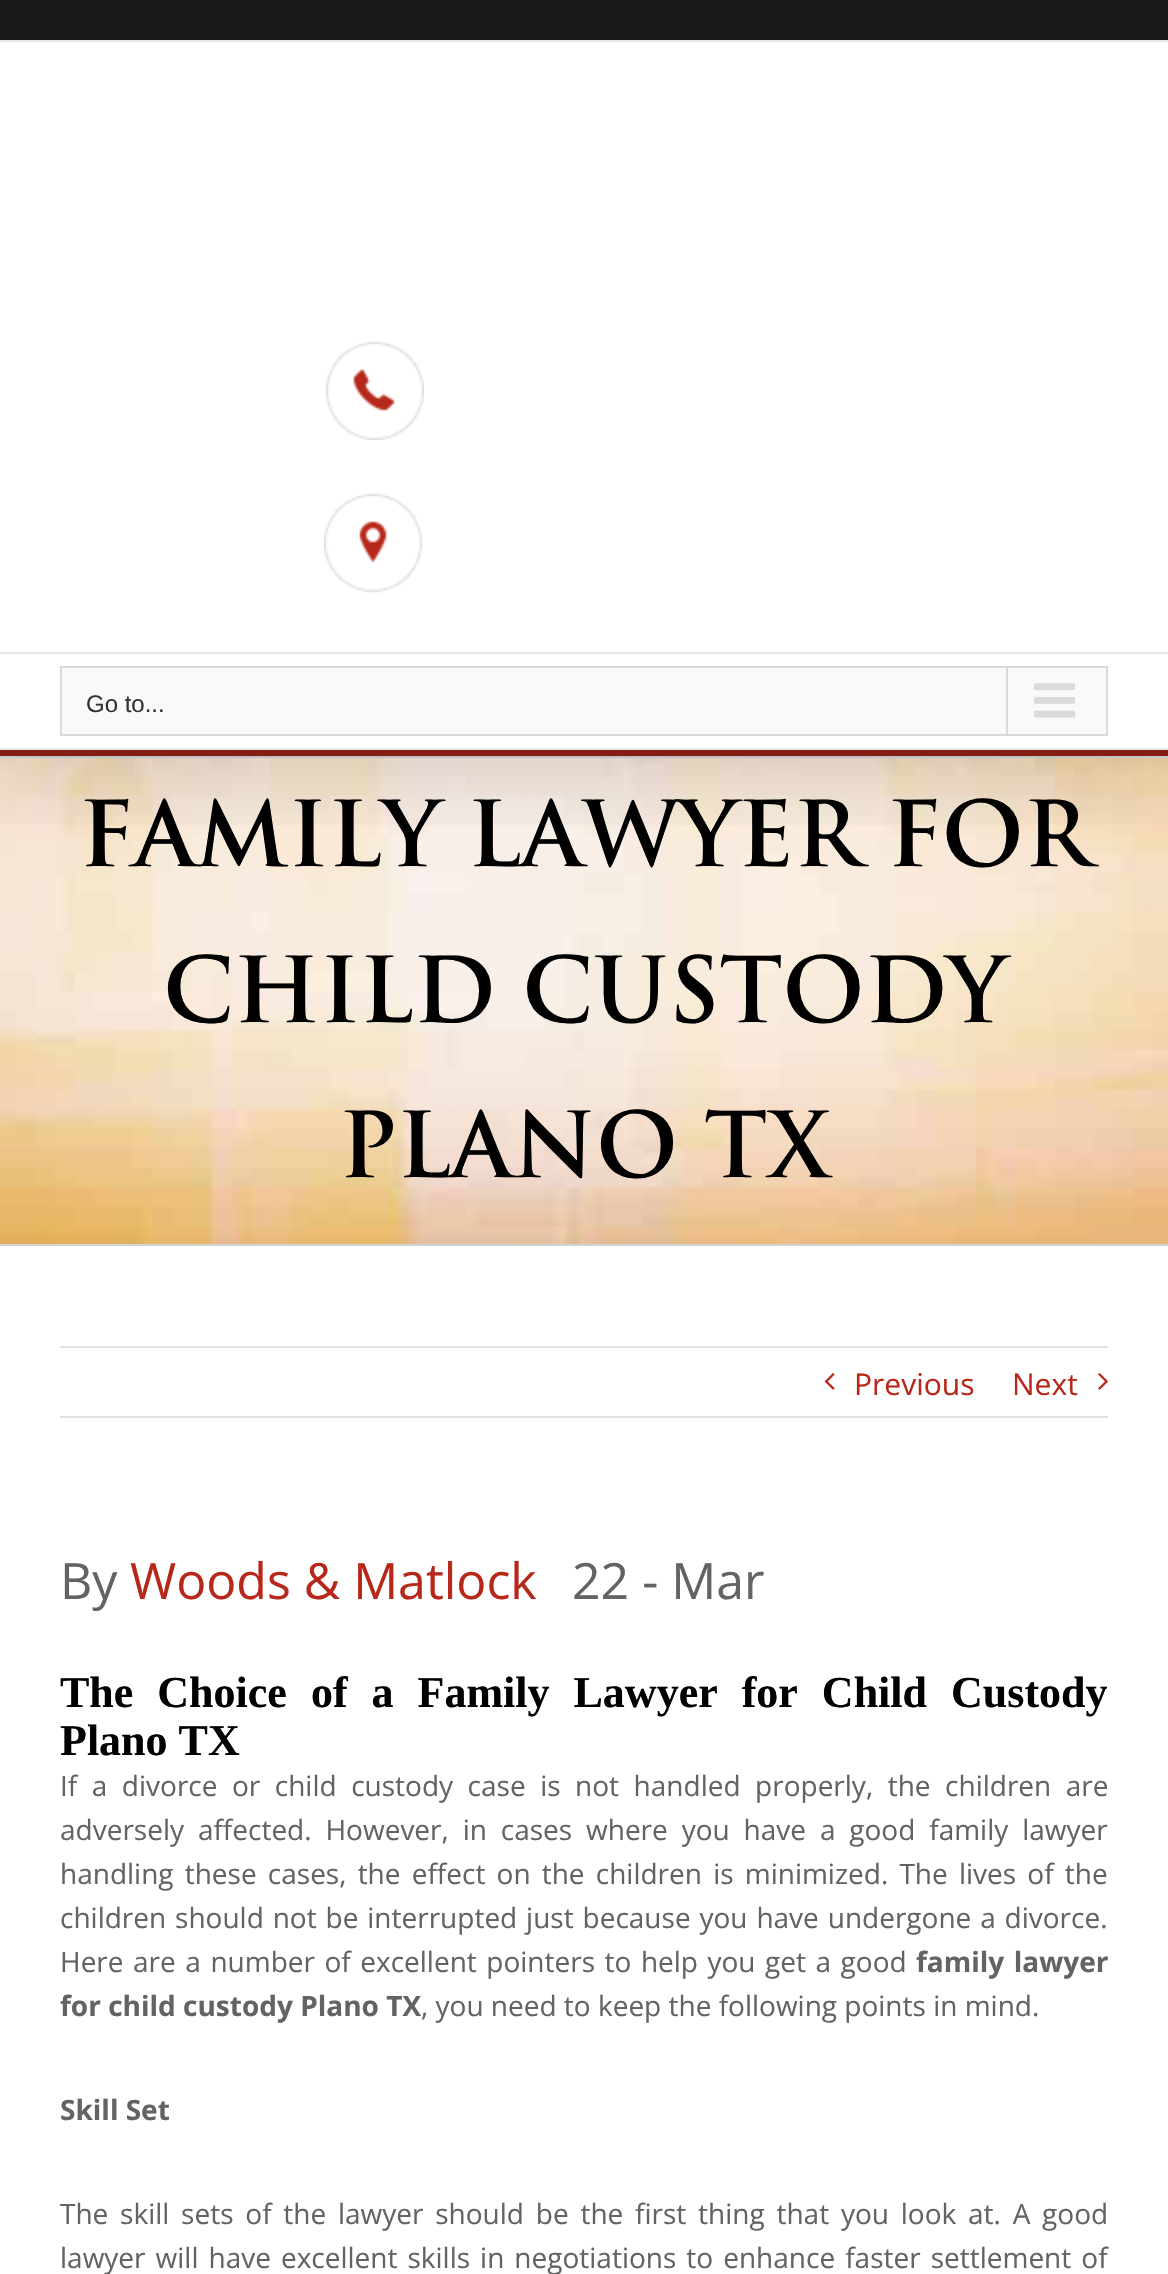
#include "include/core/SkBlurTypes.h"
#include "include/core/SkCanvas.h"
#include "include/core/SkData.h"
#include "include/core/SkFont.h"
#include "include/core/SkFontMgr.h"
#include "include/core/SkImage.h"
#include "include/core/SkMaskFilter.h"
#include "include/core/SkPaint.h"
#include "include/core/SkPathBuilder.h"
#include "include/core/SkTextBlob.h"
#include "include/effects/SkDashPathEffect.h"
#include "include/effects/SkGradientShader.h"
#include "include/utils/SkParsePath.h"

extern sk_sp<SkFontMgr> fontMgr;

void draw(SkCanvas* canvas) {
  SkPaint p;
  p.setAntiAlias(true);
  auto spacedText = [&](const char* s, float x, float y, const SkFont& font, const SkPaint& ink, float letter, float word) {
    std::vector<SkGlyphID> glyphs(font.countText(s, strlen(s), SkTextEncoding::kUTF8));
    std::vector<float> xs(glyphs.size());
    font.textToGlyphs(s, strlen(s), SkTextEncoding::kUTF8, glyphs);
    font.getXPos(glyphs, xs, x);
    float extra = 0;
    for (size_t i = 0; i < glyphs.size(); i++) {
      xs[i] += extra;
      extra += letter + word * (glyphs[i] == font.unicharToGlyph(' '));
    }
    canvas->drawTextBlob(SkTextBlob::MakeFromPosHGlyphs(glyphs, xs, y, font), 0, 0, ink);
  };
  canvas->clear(SK_ColorWHITE);
  canvas->drawImageRect(SkImages::DeferredFromEncodedData(SkData::MakeFromFileName("images/4.png")), SkRect::MakeLTRB(0, 758, 1168, 1244), SkSamplingOptions());
  p.setColor(SkColorSetRGB(210, 211, 212));
  canvas->drawRect(SkRect::MakeLTRB(0, 756, 1168, 758), p);
  canvas->save();
  canvas->clipRect(SkRect::MakeLTRB(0, 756, 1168, 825));
  p.setColor(SkColorSetARGB(36, 0, 0, 0));
  p.setMaskFilter(SkMaskFilter::MakeBlur(kNormal_SkBlurStyle, 50));
  canvas->drawRect(SkRect::MakeLTRB(4, 24, 1164, 772), p);
  p.setMaskFilter(nullptr);
  canvas->restore();
  p.setColor(SkColorSetRGB(132, 29, 19));
  canvas->drawRect(SkRect::MakeLTRB(0, 750, 1168, 756), p);
  p.setColor(SkColorSetRGB(25, 25, 27));
  canvas->drawRect(SkRect::MakeLTRB(0, 0, 1168, 40), p);
  p.setColor(SkColorSetRGB(229, 229, 229));
  canvas->drawRect(SkRect::MakeLTRB(0, 40, 1168, 42), p);
  canvas->drawRect(SkRect::MakeLTRB(0, 652, 1168, 654), p);
  canvas->drawImageRect(SkImages::DeferredFromEncodedData(SkData::MakeFromFileName("images/1.png")), SkRect::MakeLTRB(325, 341, 424, 440), SkSamplingOptions());
  canvas->drawImageRect(SkImages::DeferredFromEncodedData(SkData::MakeFromFileName("images/2.png")), SkRect::MakeLTRB(324, 493, 423, 593), SkSamplingOptions());
  canvas->drawRect(SkRect::MakeLTRB(0, 748, 1168, 750), p);
  p.setColor(SkColorSetRGB(249, 249, 249));
  canvas->drawRect(SkRect::MakeLTRB(61, 667, 1107, 735), p);
  p.setStyle(SkPaint::kStroke_Style);
  p.setStrokeWidth(2);
  p.setColor(SkColorSetRGB(218, 218, 218));
  canvas->drawRect(SkRect::MakeLTRB(61, 667, 1107, 735), p);
  p.setStyle(SkPaint::kFill_Style);
  canvas->drawRect(SkRect::MakeLTRB(1006, 668, 1008, 734), p);
  canvas->drawImageRect(SkImages::DeferredFromEncodedData(SkData::MakeFromFileName("images/3.png")), SkRect::MakeLTRB(1034, 683, 1076, 718), SkSamplingOptions());
  p.setColor(SkColorSetRGB(210, 211, 212));
  canvas->drawRect(SkRect::MakeLTRB(0, 1244, 1168, 1246), p);
  p.setColor(SkColorSetRGB(226, 226, 226));
  canvas->drawRect(SkRect::MakeLTRB(60, 1346, 1108, 1348), p);
  canvas->drawRect(SkRect::MakeLTRB(60, 1416, 1108, 1418), p);
  canvas->drawImageRect(SkImages::DeferredFromEncodedData(SkData::MakeFromFileName("images/5.png")), SkRect::MakeLTRB(824, 1373, 835, 1390), SkSamplingOptions());
  canvas->drawImageRect(SkImages::DeferredFromEncodedData(SkData::MakeFromFileName("images/6.png")), SkRect::MakeLTRB(1098, 1373, 1108, 1390), SkSamplingOptions());
  SkFont font1(fontMgr->matchFamilyStyle("Liberation Sans", SkFontStyle::Normal()), 24);
  font1.setSubpixel(true);
  p.setColor(SkColorSetRGB(51, 51, 51));
  canvas->drawString("Go to...", 86, 712, font1, p);
  SkFont font2(fontMgr->matchFamilyStyle("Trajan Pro", SkFontStyle::Bold()), 88.4f);
  font2.setSubpixel(true);
  p.setColor(SK_ColorBLACK);
  canvas->drawString("FAMILY LAWYER FOR", 79, 866, font2, p);
  canvas->drawString("CHILD CUSTODY", 163, 1022, font2, p);
  canvas->drawString("PLANO TX", 339, 1177, font2, p);
  SkFont font3(fontMgr->matchFamilyStyle("Open Sans", SkFontStyle::Normal()), 30);
  font3.setSubpixel(true);
  p.setColor(SkColorSetRGB(183, 40, 26));
  canvas->drawString("Previous", 854, 1395, font3, p);
  canvas->drawString("Next", 1012, 1395, font3, p);
  SkFont font4(fontMgr->matchFamilyStyle("Open Sans", SkFontStyle::Normal()), 50);
  font4.setSubpixel(true);
  p.setColor(SkColorSetRGB(99, 99, 99));
  canvas->drawString("By", 60, 1599, font4, p);
  p.setColor(SkColorSetRGB(183, 40, 26));
  canvas->drawString("Woods & Matlock", 130, 1599, font4, p);
  p.setColor(SkColorSetRGB(99, 99, 99));
  canvas->drawString("22 - Mar", 572, 1599, font4, p);
  SkFont font5(fontMgr->matchFamilyStyle("Liberation Serif", SkFontStyle::Bold()), 44);
  font5.setSubpixel(true);
  p.setColor(SK_ColorBLACK);
  spacedText("The Choice of a Family Lawyer for Child Custody", 60, 1707, font5, p, 0, 13);
  canvas->drawString("Plano TX", 60, 1755, font5, p);
  SkFont font6(fontMgr->matchFamilyStyle("Open Sans", SkFontStyle::Normal()), 28);
  font6.setSubpixel(true);
  p.setColor(SkColorSetRGB(99, 99, 99));
  spacedText("If a divorce or child custody case is not handled properly, the children are", 60, 1796, font6, p, 0, 7.25f);
  spacedText("adversely affected. However, in cases where you have a good family lawyer", 60, 1840, font6, p, 0, 6.6f);
  spacedText("handling these cases, the effect on the children is minimized. The lives of the", 60, 1884, font6, p, 0, 3.9f);
  spacedText("children should not be interrupted just because you have undergone a divorce.", 60, 1928, font6, p, 0, 1.6f);
  spacedText("Here are a number of excellent pointers to help you get a good", 60, 1972, font6, p, 0, 2.25f);
  SkFont font7(fontMgr->matchFamilyStyle("Open Sans", SkFontStyle::Bold()), 28);
  font7.setSubpixel(true);
  spacedText("family lawyer", 916, 1972, font7, p, 0, 2.25f);
  canvas->drawString("for child custody Plano TX", 60, 2016, font7, p);
  canvas->drawString(", you need to keep the following points in mind.", 421, 2016, font6, p);
  canvas->drawString("Skill Set", 60, 2120, font7, p);
  spacedText("The skill sets of the lawyer should be the first thing that you look at. A good", 60, 2224, font6, p, 0, 4.5f);
  spacedText("lawyer will have excellent skills in negotiations to enhance faster settlement of", 60, 2268, font6, p, 0, 2.75f);
}
